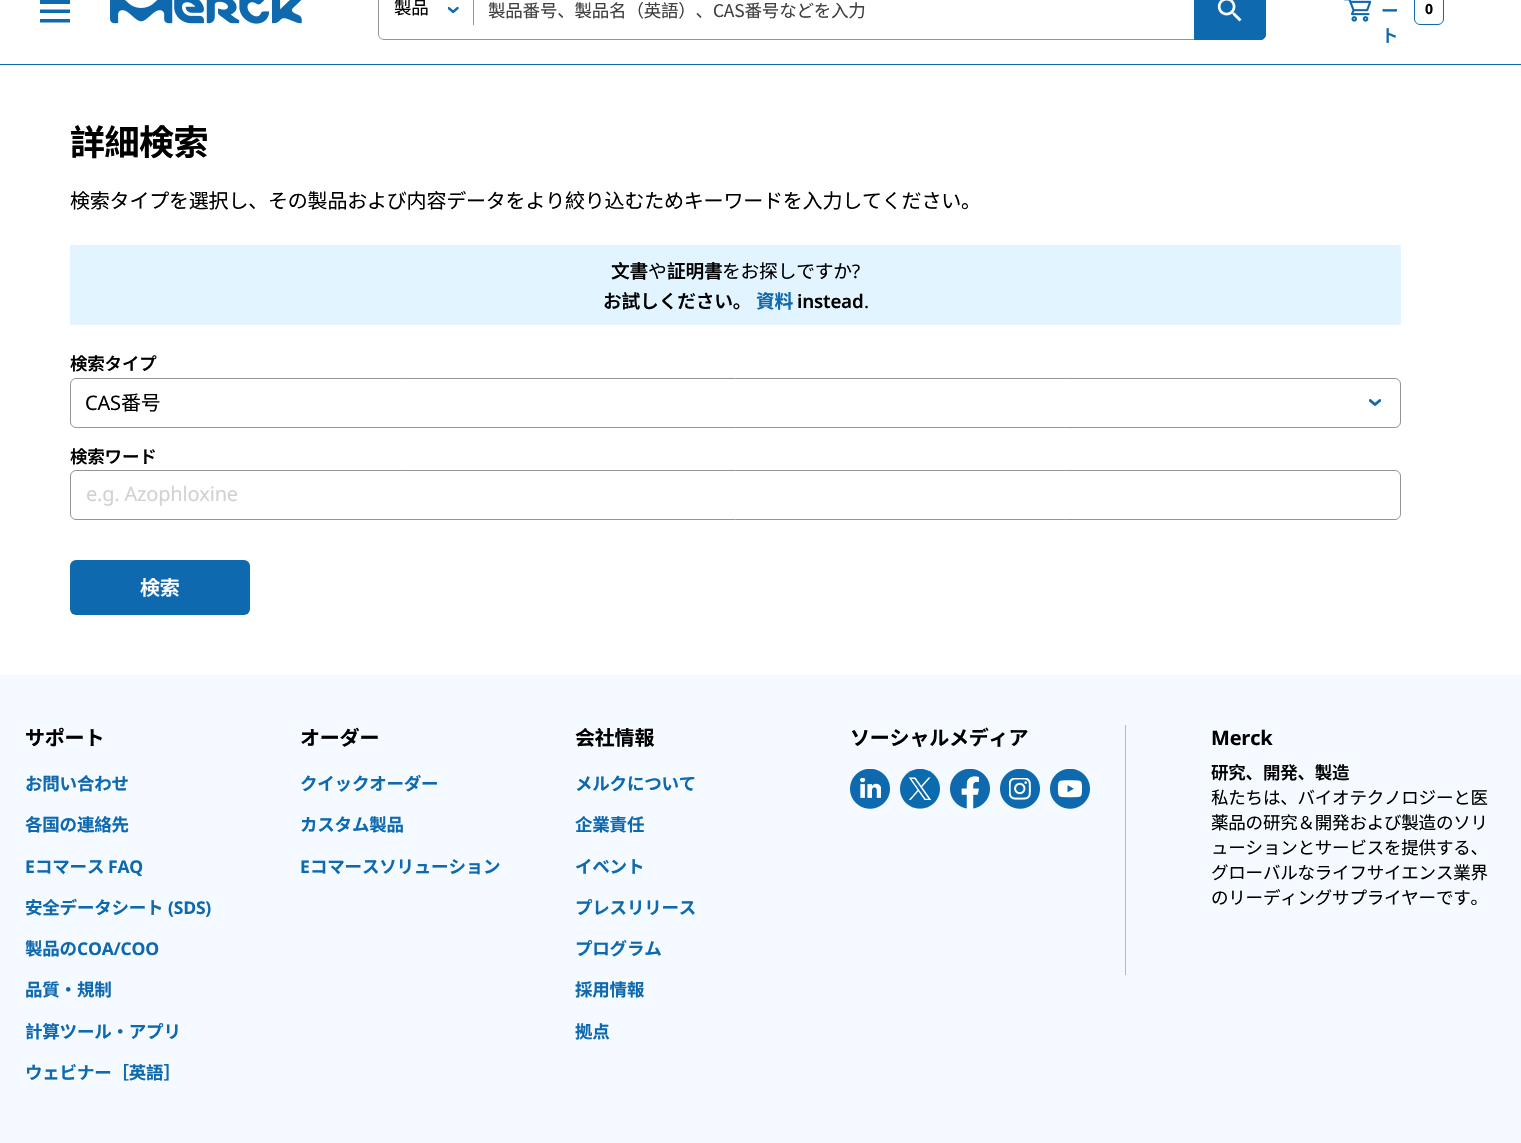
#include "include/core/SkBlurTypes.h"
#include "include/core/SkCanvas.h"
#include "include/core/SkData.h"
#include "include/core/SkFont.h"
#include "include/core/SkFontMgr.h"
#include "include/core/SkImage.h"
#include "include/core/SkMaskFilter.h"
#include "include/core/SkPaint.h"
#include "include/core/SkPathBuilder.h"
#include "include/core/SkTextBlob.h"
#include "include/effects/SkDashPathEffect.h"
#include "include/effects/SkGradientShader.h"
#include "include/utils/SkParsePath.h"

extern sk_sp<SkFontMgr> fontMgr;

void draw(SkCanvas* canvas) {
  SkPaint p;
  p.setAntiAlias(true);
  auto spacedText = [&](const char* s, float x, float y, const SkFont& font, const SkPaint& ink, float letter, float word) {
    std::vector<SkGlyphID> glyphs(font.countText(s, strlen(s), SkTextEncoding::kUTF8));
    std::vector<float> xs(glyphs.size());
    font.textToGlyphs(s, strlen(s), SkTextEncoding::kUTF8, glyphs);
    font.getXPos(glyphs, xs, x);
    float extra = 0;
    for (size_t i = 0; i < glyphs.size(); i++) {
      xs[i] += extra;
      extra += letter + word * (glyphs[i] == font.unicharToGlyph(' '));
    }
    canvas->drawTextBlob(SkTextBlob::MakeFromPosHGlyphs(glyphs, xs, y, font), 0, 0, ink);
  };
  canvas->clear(SK_ColorWHITE);
  p.setColor(SkColorSetRGB(15, 105, 175));
  canvas->drawRect(SkRect::MakeLTRB(0, 64, 1521, 65), p);
  canvas->save();
  canvas->clipRect(SkRect::MakeLTRB(40, 0, 70, 26));
  canvas->drawPath(SkPathBuilder().moveTo(38, 22.5f).lineTo(72, 22.5f).lineTo(72, 19).lineTo(38, 19).close().moveTo(38, 13).lineTo(72, 13).lineTo(72, 9.5f).lineTo(38, 9.5f).close().moveTo(38, 0).lineTo(38, 4).lineTo(72, 4).lineTo(72, 0).close().detach(), p);
  canvas->restore();
  canvas->drawImageRect(SkImages::DeferredFromEncodedData(SkData::MakeFromFileName("images/1.png")), SkRect::MakeLTRB(110, 0, 302, 24), SkSamplingOptions());
  p.setStyle(SkPaint::kStroke_Style);
  p.setStrokeWidth(1);
  p.setColor(SkColorSetRGB(148, 148, 148));
  canvas->drawRoundRect(SkRect::MakeLTRB(378.5f, -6.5f, 1265.5f, 39.5f), 5.5f, 5.5f, p);
  p.setStyle(SkPaint::kFill_Style);
  p.setColor(SK_ColorWHITE);
  canvas->drawRoundRect(SkRect::MakeLTRB(379, -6, 474, 39), 6, 6, p);
  p.setColor(SkColorSetRGB(148, 148, 148));
  canvas->drawRect(SkRect::MakeLTRB(473, 0, 474, 25), p);
  canvas->drawImageRect(SkImages::DeferredFromEncodedData(SkData::MakeFromFileName("images/2.png")), SkRect::MakeLTRB(448, 6, 459, 14), SkSamplingOptions());
  p.setColor(SkColorSetRGB(15, 105, 175));
  canvas->drawPath(SkPathBuilder().moveTo(1194.5f, -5.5f).lineTo(1261, -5.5f).cubicTo(1263.5f, -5.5f, 1265.5f, -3.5f, 1265.5f, -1).lineTo(1265.5f, 35).cubicTo(1265.5f, 37.5f, 1263.5f, 39.5f, 1261, 39.5f).lineTo(1194.5f, 39.5f).close().detach(), p);
  p.setStyle(SkPaint::kStroke_Style);
  canvas->drawPath(SkPathBuilder().moveTo(1194.5f, -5.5f).lineTo(1261, -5.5f).cubicTo(1263.5f, -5.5f, 1265.5f, -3.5f, 1265.5f, -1).lineTo(1265.5f, 35).cubicTo(1265.5f, 37.5f, 1263.5f, 39.5f, 1261, 39.5f).lineTo(1194.5f, 39.5f).close().detach(), p);
  canvas->drawImageRect(SkImages::DeferredFromEncodedData(SkData::MakeFromFileName("images/3.png")), SkRect::MakeLTRB(1217, 0, 1242, 22), SkSamplingOptions());
  canvas->drawImageRect(SkImages::DeferredFromEncodedData(SkData::MakeFromFileName("images/4.png")), SkRect::MakeLTRB(1344, 0, 1371, 22), SkSamplingOptions());
  canvas->drawRoundRect(SkRect::MakeLTRB(1414.5f, -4.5f, 1443.5f, 24.5f), 5.5f, 5.5f, p);
  p.setStyle(SkPaint::kFill_Style);
  p.setColor(SkColorSetRGB(226, 244, 255));
  canvas->drawRect(SkRect::MakeLTRB(70, 245, 1401, 325), p);
  p.setStyle(SkPaint::kStroke_Style);
  p.setColor(SkColorSetRGB(148, 148, 148));
  canvas->drawRoundRect(SkRect::MakeLTRB(70.5f, 378.5f, 1400.5f, 427.5f), 5.5f, 5.5f, p);
  canvas->drawImageRect(SkImages::DeferredFromEncodedData(SkData::MakeFromFileName("images/5.png")), SkRect::MakeLTRB(1369, 399, 1381, 406), SkSamplingOptions());
  canvas->drawRoundRect(SkRect::MakeLTRB(70.5f, 470.5f, 1400.5f, 519.5f), 5.5f, 5.5f, p);
  p.setStyle(SkPaint::kFill_Style);
  p.setColor(SkColorSetRGB(15, 105, 175));
  canvas->drawRoundRect(SkRect::MakeLTRB(70, 560, 250, 615), 6, 6, p);
  p.setColor(SkColorSetRGB(244, 250, 255));
  canvas->drawRect(SkRect::MakeLTRB(0, 675, 1521, 1143), p);
  canvas->drawImageRect(SkImages::DeferredFromEncodedData(SkData::MakeFromFileName("images/6.png")), SkRect::MakeLTRB(850, 769, 890, 809), SkSamplingOptions());
  canvas->drawImageRect(SkImages::DeferredFromEncodedData(SkData::MakeFromFileName("images/7.png")), SkRect::MakeLTRB(900, 769, 940, 809), SkSamplingOptions());
  canvas->drawImageRect(SkImages::DeferredFromEncodedData(SkData::MakeFromFileName("images/8.png")), SkRect::MakeLTRB(950, 769, 990, 809), SkSamplingOptions());
  canvas->drawImageRect(SkImages::DeferredFromEncodedData(SkData::MakeFromFileName("images/9.png")), SkRect::MakeLTRB(1000, 769, 1040, 809), SkSamplingOptions());
  canvas->drawImageRect(SkImages::DeferredFromEncodedData(SkData::MakeFromFileName("images/10.png")), SkRect::MakeLTRB(1050, 769, 1090, 809), SkSamplingOptions());
  p.setColor(SkColorSetRGB(181, 185, 189));
  canvas->drawRect(SkRect::MakeLTRB(1125, 725, 1126, 975), p);
  SkFont font1(fontMgr->matchFamilyStyle("Noto Sans SC", SkFontStyle::Normal()), 17.5f);
  font1.setSubpixel(true);
  p.setColor(SK_ColorBLACK);
  spacedText("製品", 394, 14, font1, p, -0.2f, 0);
  p.setColor(SkColorSetRGB(64, 64, 64));
  spacedText("製品番号、製品名（英語）、CAS番号などを入力", 488, 17, font1, p, -0.2f, 0);
  SkFont font2(fontMgr->matchFamilyStyle("Noto Sans SC", SkFontStyle(600, SkFontStyle::kNormal_Width, SkFontStyle::kUpright_Slant)), 17.5f);
  font2.setSubpixel(true);
  p.setColor(SkColorSetRGB(15, 105, 175));
  canvas->drawString("ー", 1381, 17, font2, p);
  canvas->drawString("ト", 1381, 42, font2, p);
  SkFont font3(fontMgr->matchFamilyStyle("Noto Sans", SkFontStyle::Bold()), 14);
  font3.setSubpixel(true);
  p.setColor(SK_ColorBLACK);
  canvas->drawString("0", 1425, 14, font3, p);
  SkFont font4(fontMgr->matchFamilyStyle("Noto Sans SC", SkFontStyle::Bold()), 35);
  font4.setSubpixel(true);
  spacedText("詳細検索", 70, 155, font4, p, -0.5f, 0);
  SkFont font5(fontMgr->matchFamilyStyle("Noto Sans SC", SkFontStyle::Normal()), 20);
  font5.setSubpixel(true);
  spacedText("検索タイプを選択し、その製品および内容データをより絞り込むためキーワードを入力してください。", 70, 208, font5, p, -0.2f, 0);
  SkFont font6(fontMgr->matchFamilyStyle("Noto Sans SC", SkFontStyle(600, SkFontStyle::kNormal_Width, SkFontStyle::kUpright_Slant)), 18.75f);
  font6.setSubpixel(true);
  spacedText("文書", 611, 278, font6, p, -0.2f, 0);
  SkFont font7(fontMgr->matchFamilyStyle("Noto Sans SC", SkFontStyle::Normal()), 18.75f);
  font7.setSubpixel(true);
  spacedText("や", 648, 278, font7, p, -0.2f, 0);
  spacedText("証明書", 667, 278, font6, p, -0.2f, 0);
  spacedText("をお探しですか", 722, 278, font7, p, -0.2f, 0);
  SkFont font8(fontMgr->matchFamilyStyle("Noto Sans", SkFontStyle::Normal()), 18.75f);
  font8.setSubpixel(true);
  spacedText("?", 852, 278, font8, p, -0.2f, 0);
  spacedText("お試しください。", 603, 308, font6, p, -0.2f, 0);
  SkFont font9(fontMgr->matchFamilyStyle("Noto Sans SC", SkFontStyle::Bold()), 18.75f);
  font9.setSubpixel(true);
  p.setColor(SkColorSetRGB(15, 105, 175));
  spacedText("資料", 756, 308, font9, p, -0.2f, 0);
  SkFont font10(fontMgr->matchFamilyStyle("Noto Sans", SkFontStyle(600, SkFontStyle::kNormal_Width, SkFontStyle::kUpright_Slant)), 18.75f);
  font10.setSubpixel(true);
  p.setColor(SK_ColorBLACK);
  spacedText("instead", 797, 308, font10, p, -0.2f, 0);
  spacedText(".", 864, 308, font8, p, -0.2f, 0);
  spacedText("検索タイプ", 70, 370, font2, p, -0.2f, 0);
  SkFont font11(fontMgr->matchFamilyStyle("Noto Sans", SkFontStyle::Normal()), 20);
  font11.setSubpixel(true);
  spacedText("CAS", 85, 410, font11, p, -0.2f, 0);
  spacedText("番号", 121, 410, font5, p, -0.2f, 0);
  spacedText("検索ワード", 70, 463, font2, p, -0.2f, 0);
  p.setColor(SkColorSetRGB(210, 210, 210));
  spacedText("e.g. Azophloxine", 86, 501, font11, p, -0.2f, 0);
  SkFont font12(fontMgr->matchFamilyStyle("Noto Sans SC", SkFontStyle(600, SkFontStyle::kNormal_Width, SkFontStyle::kUpright_Slant)), 20);
  font12.setSubpixel(true);
  p.setColor(SK_ColorWHITE);
  spacedText("検索", 140, 595, font12, p, -0.2f, 0);
  SkFont font13(fontMgr->matchFamilyStyle("Noto Sans SC", SkFontStyle::Bold()), 20);
  font13.setSubpixel(true);
  p.setColor(SK_ColorBLACK);
  spacedText("サポート", 25, 745, font13, p, -0.2f, 0);
  SkFont font14(fontMgr->matchFamilyStyle("Noto Sans SC", SkFontStyle::Bold()), 17.5f);
  font14.setSubpixel(true);
  p.setColor(SkColorSetRGB(15, 105, 175));
  spacedText("お問い合わせ", 25, 790, font14, p, -0.2f, 0);
  spacedText("各国の連絡先", 25, 831, font14, p, -0.2f, 0);
  SkFont font15(fontMgr->matchFamilyStyle("Noto Sans", SkFontStyle::Bold()), 17.5f);
  font15.setSubpixel(true);
  spacedText("E", 25, 873, font15, p, -0.2f, 0);
  spacedText("コマース", 35, 873, font14, p, -0.2f, 0);
  spacedText("FAQ", 108, 873, font15, p, -0.2f, 0);
  spacedText("安全データシート", 25, 914, font14, p, -0.2f, 0);
  spacedText("(SDS)", 168, 914, font15, p, -0.2f, 0);
  spacedText("製品の", 25, 955, font14, p, -0.2f, 0);
  spacedText("COA/COO", 77, 955, font15, p, -0.2f, 0);
  spacedText("品質・規制", 25, 996, font14, p, -0.2f, 0);
  spacedText("計算ツール・アプリ", 25, 1038, font14, p, -0.2f, 0);
  spacedText("ウェビナー［英語］", 25, 1079, font14, p, -0.2f, 0);
  p.setColor(SK_ColorBLACK);
  spacedText("オーダー", 300, 745, font13, p, -0.2f, 0);
  p.setColor(SkColorSetRGB(15, 105, 175));
  spacedText("クイックオーダー", 300, 790, font14, p, -0.2f, 0);
  spacedText("カスタム製品", 300, 831, font14, p, -0.2f, 0);
  spacedText("E", 300, 873, font15, p, -0.2f, 0);
  spacedText("コマースソリューション", 310, 873, font14, p, -0.2f, 0);
  p.setColor(SK_ColorBLACK);
  spacedText("会社情報", 575, 745, font13, p, -0.2f, 0);
  p.setColor(SkColorSetRGB(15, 105, 175));
  spacedText("メルクについて", 575, 790, font14, p, -0.2f, 0);
  spacedText("企業責任", 575, 831, font14, p, -0.2f, 0);
  spacedText("イベント", 575, 873, font14, p, -0.2f, 0);
  spacedText("プレスリリース", 575, 914, font14, p, -0.2f, 0);
  spacedText("プログラム", 575, 955, font14, p, -0.2f, 0);
  spacedText("採用情報", 575, 996, font14, p, -0.2f, 0);
  spacedText("拠点", 575, 1038, font14, p, -0.2f, 0);
  p.setColor(SK_ColorBLACK);
  spacedText("ソーシャルメディア", 850, 745, font13, p, -0.2f, 0);
  SkFont font16(fontMgr->matchFamilyStyle("Noto Sans", SkFontStyle::Bold()), 20);
  font16.setSubpixel(true);
  spacedText("Merck", 1211, 745, font16, p, -0.2f, 0);
  spacedText("研究、開発、製造", 1211, 779, font2, p, -0.2f, 0);
  spacedText("私たちは、バイオテクノロジーと医", 1211, 804, font1, p, -0.2f, 0);
  spacedText("薬品の研究＆開発および製造のソリ", 1211, 829, font1, p, -0.2f, 0);
  spacedText("ューションとサービスを提供する、", 1211, 854, font1, p, -0.2f, 0);
  spacedText("グローバルなライフサイエンス業界", 1211, 879, font1, p, -0.2f, 0);
  spacedText("のリーディングサプライヤーです。", 1211, 904, font1, p, -0.2f, 0);
}
